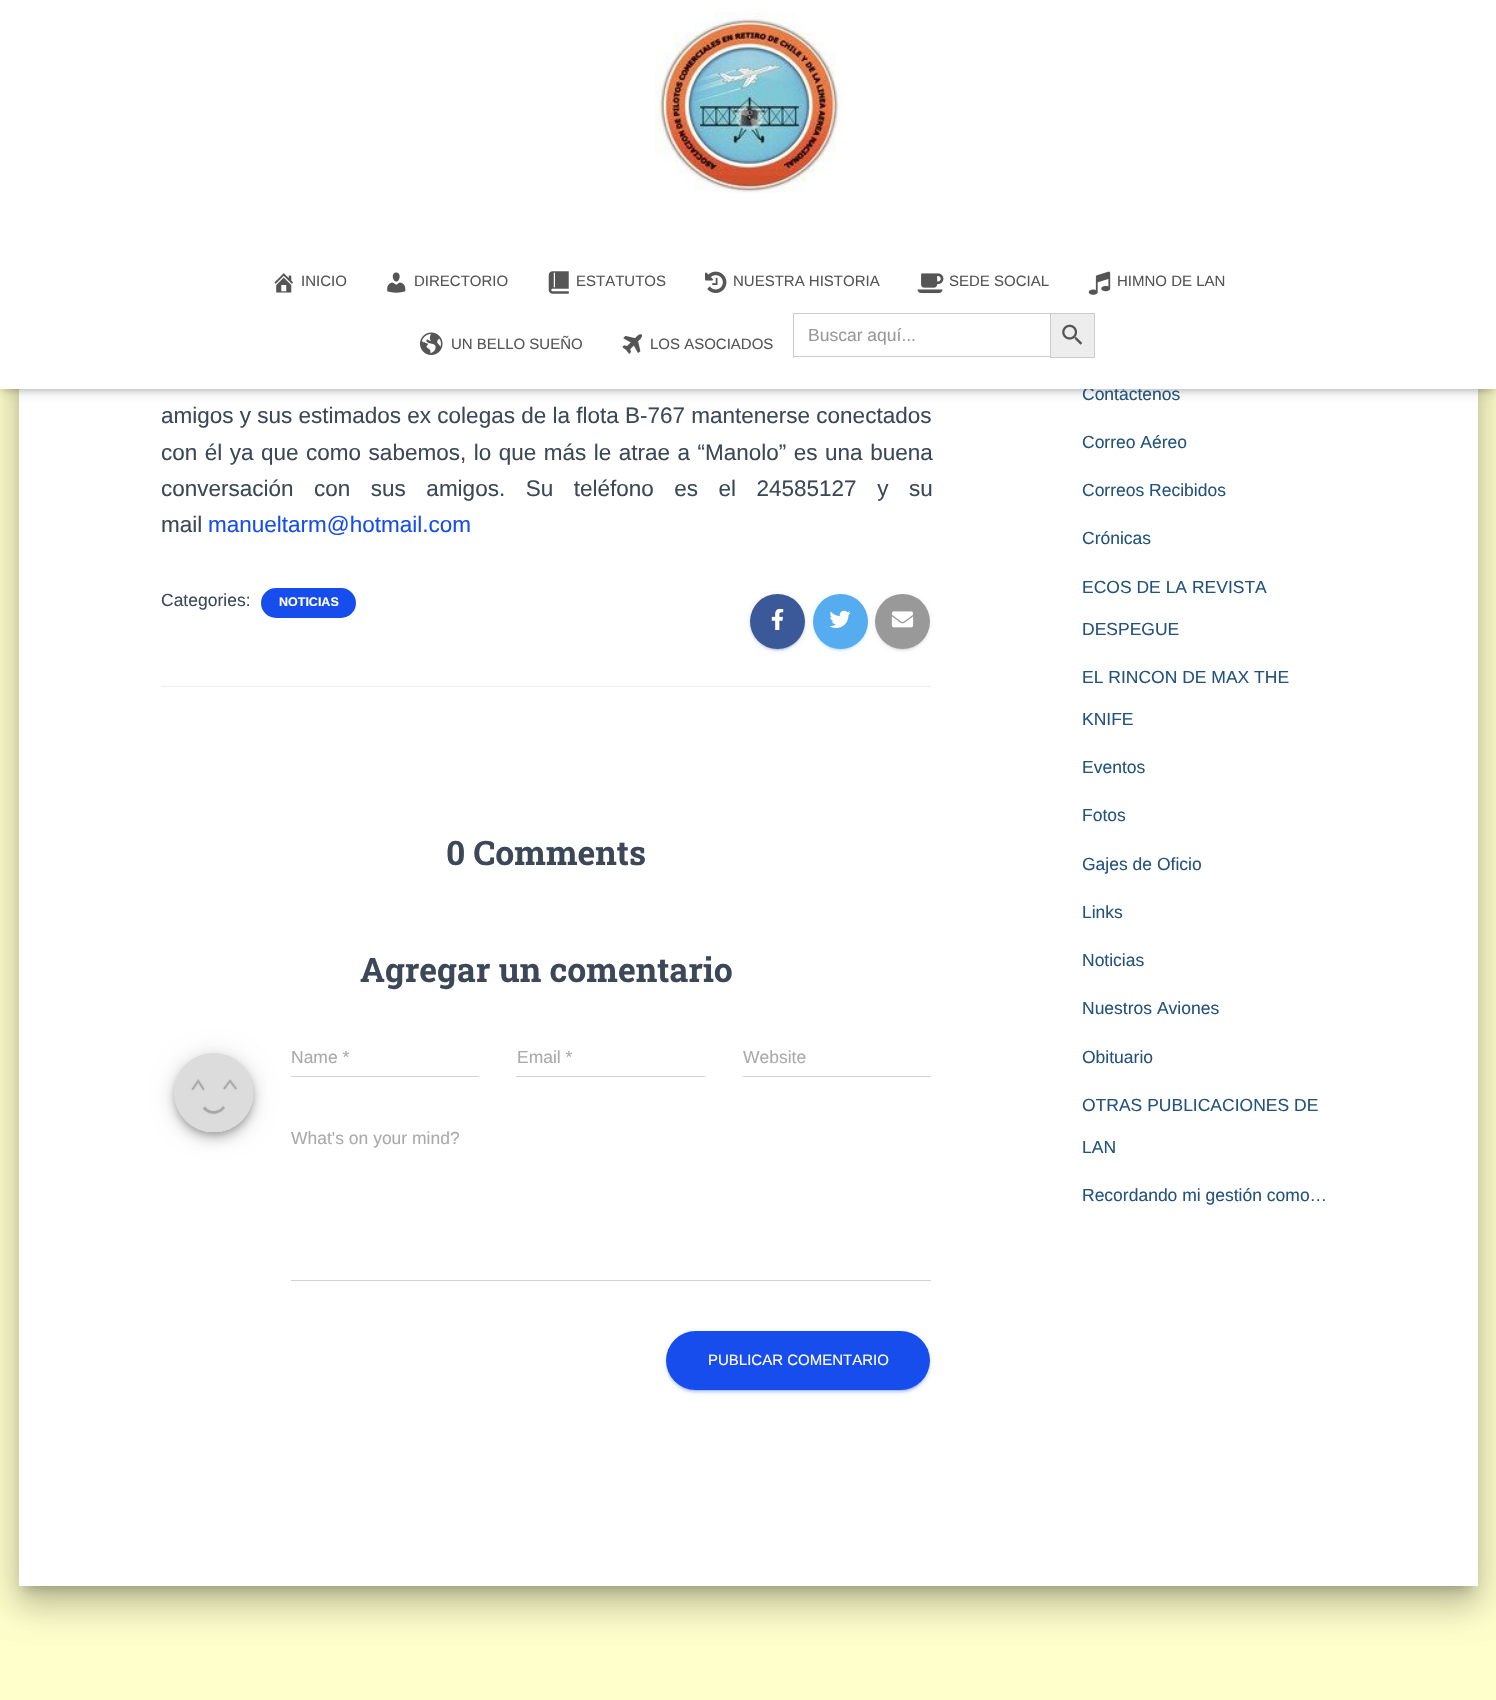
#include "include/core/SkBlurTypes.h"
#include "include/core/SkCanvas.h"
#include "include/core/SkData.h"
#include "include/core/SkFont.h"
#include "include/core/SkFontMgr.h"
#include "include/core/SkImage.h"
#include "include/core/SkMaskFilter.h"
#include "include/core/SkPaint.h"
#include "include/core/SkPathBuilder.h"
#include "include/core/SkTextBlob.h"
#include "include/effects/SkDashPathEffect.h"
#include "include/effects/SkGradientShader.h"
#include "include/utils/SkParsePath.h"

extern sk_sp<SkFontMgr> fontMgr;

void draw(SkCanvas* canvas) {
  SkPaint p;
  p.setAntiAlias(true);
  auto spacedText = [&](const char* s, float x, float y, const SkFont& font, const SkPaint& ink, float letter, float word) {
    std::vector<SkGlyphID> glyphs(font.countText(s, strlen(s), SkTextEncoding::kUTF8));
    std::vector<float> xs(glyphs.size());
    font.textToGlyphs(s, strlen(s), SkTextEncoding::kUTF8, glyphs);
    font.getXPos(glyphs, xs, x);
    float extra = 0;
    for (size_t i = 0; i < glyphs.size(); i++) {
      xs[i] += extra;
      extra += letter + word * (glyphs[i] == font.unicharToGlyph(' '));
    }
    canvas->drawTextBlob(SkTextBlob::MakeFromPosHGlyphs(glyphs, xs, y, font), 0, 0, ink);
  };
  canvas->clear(SkColorSetRGB(255, 255, 204));
  p.setColor(SkColorSetARGB(51, 0, 0, 0));
  p.setMaskFilter(SkMaskFilter::MakeBlur(kNormal_SkBlurStyle, 6));
  canvas->drawRoundRect(SkRect::MakeLTRB(25, 109, 1471, 1590), 1, 1, p);
  p.setMaskFilter(nullptr);
  p.setColor(SkColorSetARGB(31, 0, 0, 0));
  p.setMaskFilter(SkMaskFilter::MakeBlur(kNormal_SkBlurStyle, 19));
  canvas->drawRoundRect(SkRect::MakeLTRB(13, 94, 1484, 1600), 14, 14, p);
  p.setMaskFilter(nullptr);
  p.setColor(SkColorSetARGB(36, 0, 0, 0));
  p.setMaskFilter(SkMaskFilter::MakeBlur(kNormal_SkBlurStyle, 15));
  canvas->drawRoundRect(SkRect::MakeLTRB(16, 110, 1480, 1609), 10, 10, p);
  p.setMaskFilter(nullptr);
  p.setColor(SK_ColorWHITE);
  canvas->drawRect(SkRect::MakeLTRB(19, 389, 1478, 1586), p);
  p.setColor(SkColorSetARGB(26, 0, 0, 0));
  p.setMaskFilter(SkMaskFilter::MakeBlur(kNormal_SkBlurStyle, 3));
  canvas->drawRect(SkRect::MakeLTRB(3, 8, 1494, 391), p);
  p.setMaskFilter(nullptr);
  p.setColor(SkColorSetARGB(31, 0, 0, 0));
  p.setMaskFilter(SkMaskFilter::MakeBlur(kNormal_SkBlurStyle, 6));
  canvas->drawRect(SkRect::MakeLTRB(0, 1, 1496, 390), p);
  p.setMaskFilter(nullptr);
  p.setColor(SkColorSetARGB(107, 0, 0, 0));
  p.setMaskFilter(SkMaskFilter::MakeBlur(kNormal_SkBlurStyle, 6));
  canvas->drawRect(SkRect::MakeLTRB(8, 9, 1489, 383), p);
  p.setMaskFilter(nullptr);
  p.setColor(SkColorSetRGB(23, 77, 237));
  canvas->drawRoundRect(SkRect::MakeLTRB(261, 588, 356, 618), 15, 15, p);
  p.setColor(SkColorSetARGB(31, 59, 89, 152));
  p.setMaskFilter(SkMaskFilter::MakeBlur(kNormal_SkBlurStyle, 3));
  canvas->drawRoundRect(SkRect::MakeLTRB(750, 595, 805, 650), 27.5f, 27.5f, p);
  p.setMaskFilter(nullptr);
  p.setColor(SkColorSetARGB(51, 59, 89, 152));
  p.setMaskFilter(SkMaskFilter::MakeBlur(kNormal_SkBlurStyle, 0.5f));
  canvas->drawRoundRect(SkRect::MakeLTRB(753, 600, 803, 650), 25, 25, p);
  p.setMaskFilter(nullptr);
  p.setColor(SkColorSetARGB(36, 59, 89, 152));
  p.setMaskFilter(SkMaskFilter::MakeBlur(kNormal_SkBlurStyle, 1));
  canvas->drawRoundRect(SkRect::MakeLTRB(750, 596, 805, 651), 27.5f, 27.5f, p);
  p.setMaskFilter(nullptr);
  p.setColor(SkColorSetRGB(59, 89, 152));
  canvas->drawCircle(777.5f, 621.5f, 27.5f, p);
  canvas->drawImageRect(SkImages::DeferredFromEncodedData(SkData::MakeFromFileName("images/11.png")), SkRect::MakeLTRB(771, 609, 784, 630), SkSamplingOptions());
  p.setColor(SkColorSetARGB(31, 85, 172, 238));
  p.setMaskFilter(SkMaskFilter::MakeBlur(kNormal_SkBlurStyle, 3));
  canvas->drawRoundRect(SkRect::MakeLTRB(813, 595, 868, 650), 27.5f, 27.5f, p);
  p.setMaskFilter(nullptr);
  p.setColor(SkColorSetARGB(51, 85, 172, 238));
  p.setMaskFilter(SkMaskFilter::MakeBlur(kNormal_SkBlurStyle, 0.5f));
  canvas->drawRoundRect(SkRect::MakeLTRB(815, 600, 865, 650), 25, 25, p);
  p.setMaskFilter(nullptr);
  p.setColor(SkColorSetARGB(36, 85, 172, 238));
  p.setMaskFilter(SkMaskFilter::MakeBlur(kNormal_SkBlurStyle, 1));
  canvas->drawRoundRect(SkRect::MakeLTRB(813, 596, 868, 651), 27.5f, 27.5f, p);
  p.setMaskFilter(nullptr);
  p.setColor(SkColorSetRGB(85, 172, 238));
  canvas->drawCircle(840.5f, 621.5f, 27.5f, p);
  canvas->drawImageRect(SkImages::DeferredFromEncodedData(SkData::MakeFromFileName("images/12.png")), SkRect::MakeLTRB(829, 610, 851, 628), SkSamplingOptions());
  p.setColor(SkColorSetARGB(31, 153, 153, 153));
  p.setMaskFilter(SkMaskFilter::MakeBlur(kNormal_SkBlurStyle, 3));
  canvas->drawRoundRect(SkRect::MakeLTRB(875, 595, 930, 650), 27.5f, 27.5f, p);
  p.setMaskFilter(nullptr);
  p.setColor(SkColorSetARGB(51, 153, 153, 153));
  p.setMaskFilter(SkMaskFilter::MakeBlur(kNormal_SkBlurStyle, 0.5f));
  canvas->drawRoundRect(SkRect::MakeLTRB(878, 600, 928, 650), 25, 25, p);
  p.setMaskFilter(nullptr);
  p.setColor(SkColorSetARGB(36, 153, 153, 153));
  p.setMaskFilter(SkMaskFilter::MakeBlur(kNormal_SkBlurStyle, 1));
  canvas->drawRoundRect(SkRect::MakeLTRB(875, 596, 930, 651), 27.5f, 27.5f, p);
  p.setMaskFilter(nullptr);
  p.setColor(SkColorSetRGB(153, 153, 153));
  canvas->drawCircle(902.5f, 621.5f, 27.5f, p);
  canvas->drawImageRect(SkImages::DeferredFromEncodedData(SkData::MakeFromFileName("images/13.png")), SkRect::MakeLTRB(891, 611, 914, 628), SkSamplingOptions());
  p.setColor(SkColorSetRGB(238, 238, 238));
  canvas->drawRect(SkRect::MakeLTRB(161, 686, 931, 687), p);
  p.setColor(SkColorSetARGB(51, 0, 0, 0));
  p.setMaskFilter(SkMaskFilter::MakeBlur(kNormal_SkBlurStyle, 3));
  canvas->drawRoundRect(SkRect::MakeLTRB(175, 1058, 253, 1135), 38.5f, 38.5f, p);
  p.setMaskFilter(nullptr);
  p.setColor(SkColorSetARGB(31, 0, 0, 0));
  p.setMaskFilter(SkMaskFilter::MakeBlur(kNormal_SkBlurStyle, 11));
  canvas->drawRoundRect(SkRect::MakeLTRB(174, 1054, 254, 1134), 40, 40, p);
  p.setMaskFilter(nullptr);
  p.setColor(SkColorSetARGB(36, 0, 0, 0));
  p.setMaskFilter(SkMaskFilter::MakeBlur(kNormal_SkBlurStyle, 6));
  canvas->drawRoundRect(SkRect::MakeLTRB(174, 1060, 254, 1140), 40, 40, p);
  p.setMaskFilter(nullptr);
  canvas->drawImageRect(SkImages::DeferredFromEncodedData(SkData::MakeFromFileName("images/14.png")), SkRect::MakeLTRB(174, 1053, 254, 1132), SkSamplingOptions());
  p.setColor(SkColorSetRGB(210, 210, 210));
  canvas->drawRect(SkRect::MakeLTRB(291, 1076, 479, 1077), p);
  canvas->drawRect(SkRect::MakeLTRB(516, 1076, 705, 1077), p);
  canvas->drawRect(SkRect::MakeLTRB(743, 1076, 931, 1077), p);
  canvas->drawRect(SkRect::MakeLTRB(291, 1280, 931, 1281), p);
  p.setColor(SkColorSetARGB(31, 23, 77, 237));
  p.setMaskFilter(SkMaskFilter::MakeBlur(kNormal_SkBlurStyle, 3));
  canvas->drawRoundRect(SkRect::MakeLTRB(666, 1333, 930, 1391), 29, 29, p);
  p.setMaskFilter(nullptr);
  p.setColor(SkColorSetARGB(51, 23, 77, 237));
  p.setMaskFilter(SkMaskFilter::MakeBlur(kNormal_SkBlurStyle, 0.5f));
  canvas->drawRoundRect(SkRect::MakeLTRB(669, 1338, 928, 1391), 26.5f, 26.5f, p);
  p.setMaskFilter(nullptr);
  p.setColor(SkColorSetARGB(36, 23, 77, 237));
  p.setMaskFilter(SkMaskFilter::MakeBlur(kNormal_SkBlurStyle, 1));
  canvas->drawRoundRect(SkRect::MakeLTRB(666, 1334, 930, 1393), 29.5f, 29.5f, p);
  p.setMaskFilter(nullptr);
  p.setColor(SkColorSetRGB(23, 77, 237));
  canvas->drawRoundRect(SkRect::MakeLTRB(666, 1331, 930, 1390), 29.5f, 29.5f, p);
  SkFont font1(fontMgr->matchFamilyStyle("Liberation Sans", SkFontStyle::Normal()), 22.5f);
  font1.setSubpixel(true);
  p.setColor(SkColorSetRGB(60, 72, 88));
  canvas->drawString("amigos y sus estimados ex colegas de la flota B-767 mantenerse conectados", 161, 423, font1, p);
  spacedText("con él ya que como sabemos, lo que más le atrae a “Manolo” es una buena", 161, 460, font1, p, 0, 1.25f);
  spacedText("conversación con sus amigos. Su teléfono es el 24585127 y su", 161, 496, font1, p, 0, 14.25f);
  canvas->drawString("mail", 161, 532, font1, p);
  p.setColor(SkColorSetRGB(23, 77, 237));
  canvas->drawString("manueltarm@hotmail.com", 208, 532, font1, p);
  SkFont font2(fontMgr->matchFamilyStyle("Liberation Sans", SkFontStyle::Normal()), 17.5f);
  font2.setSubpixel(true);
  p.setColor(SkColorSetRGB(60, 72, 88));
  canvas->drawString("Categories:", 161, 606, font2, p);
  SkFont font3(fontMgr->matchFamilyStyle("Liberation Sans", SkFontStyle::Bold()), 12.5f);
  font3.setSubpixel(true);
  p.setColor(SK_ColorWHITE);
  canvas->drawString("NOTICIAS", 279, 606, font3, p);
  SkFont font4(fontMgr->matchFamilyStyle("Roboto Slab", SkFontStyle::Bold()), 33.75f);
  font4.setSubpixel(true);
  p.setColor(SkColorSetRGB(60, 72, 88));
  canvas->drawString("0 Comments", 446, 865, font4, p);
  canvas->drawString("Agregar un comentario", 360, 982, font4, p);
  p.setColor(SkColorSetRGB(170, 170, 170));
  canvas->drawString("Name *", 291, 1063, font2, p);
  canvas->drawString("Email *", 517, 1063, font2, p);
  canvas->drawString("Website", 743, 1063, font2, p);
  canvas->drawString("What's on your mind?", 291, 1144, font2, p);
  SkFont font5(fontMgr->matchFamilyStyle("Liberation Sans", SkFontStyle::Normal()), 15);
  font5.setSubpixel(true);
  p.setColor(SK_ColorWHITE);
  canvas->drawString("PUBLICAR COMENTARIO", 708, 1365, font5, p);
  p.setColor(SkColorSetRGB(35, 82, 124));
  canvas->drawString("Contáctenos", 1082, 400, font2, p);
  p.setColor(SK_ColorWHITE);
  canvas->drawRect(SkRect::MakeLTRB(0, 0, 1496, 389), p);
  p.setColor(SkColorSetRGB(237, 237, 237));
  canvas->drawRect(SkRect::MakeLTRB(1050.5f, 313.5f, 1094.5f, 357.5f), p);
  p.setStyle(SkPaint::kStroke_Style);
  p.setStrokeWidth(1);
  p.setColor(SkColorSetRGB(204, 204, 204));
  canvas->drawRect(SkRect::MakeLTRB(1050.5f, 313.5f, 1094.5f, 357.5f), p);
  canvas->drawImageRect(SkImages::DeferredFromEncodedData(SkData::MakeFromFileName("images/10.png")), SkRect::MakeLTRB(1062, 324, 1083, 345), SkSamplingOptions());
  p.setStyle(SkPaint::kFill_Style);
  p.setColor(SkColorSetRGB(153, 153, 153));
  canvas->drawString("Buscar aquí...", 808, 341, font2, p);
  p.setColor(SkColorSetRGB(204, 204, 204));
  canvas->drawRect(SkRect::MakeLTRB(793, 356, 1050, 357), p);
  canvas->drawRect(SkRect::MakeLTRB(793, 313, 1050, 314), p);
  canvas->drawRect(SkRect::MakeLTRB(793, 313, 794, 358), p);
  canvas->drawImageRect(SkImages::DeferredFromEncodedData(SkData::MakeFromFileName("images/9.png")), SkRect::MakeLTRB(622, 334, 642, 354), SkSamplingOptions());
  p.setColor(SkColorSetRGB(85, 85, 85));
  canvas->drawString("LOS ASOCIADOS", 650, 349, font5, p);
  canvas->drawImageRect(SkImages::DeferredFromEncodedData(SkData::MakeFromFileName("images/8.png")), SkRect::MakeLTRB(420, 332, 443, 355), SkSamplingOptions());
  canvas->drawString("UN BELLO SUEÑO", 451, 349, font5, p);
  canvas->drawImageRect(SkImages::DeferredFromEncodedData(SkData::MakeFromFileName("images/7.png")), SkRect::MakeLTRB(1088, 271, 1111, 295), SkSamplingOptions());
  canvas->drawString("HIMNO DE LAN", 1117, 286, font5, p);
  canvas->drawImageRect(SkImages::DeferredFromEncodedData(SkData::MakeFromFileName("images/6.png")), SkRect::MakeLTRB(917, 273, 944, 294), SkSamplingOptions());
  canvas->drawString("SEDE SOCIAL", 949, 286, font5, p);
  canvas->drawImageRect(SkImages::DeferredFromEncodedData(SkData::MakeFromFileName("images/5.png")), SkRect::MakeLTRB(705, 271, 727, 293), SkSamplingOptions());
  canvas->drawString("NUESTRA HISTORIA", 733, 286, font5, p);
  canvas->drawImageRect(SkImages::DeferredFromEncodedData(SkData::MakeFromFileName("images/4.png")), SkRect::MakeLTRB(548, 271, 569, 294), SkSamplingOptions());
  canvas->drawString("ESTATUTOS", 576, 286, font5, p);
  canvas->drawImageRect(SkImages::DeferredFromEncodedData(SkData::MakeFromFileName("images/3.png")), SkRect::MakeLTRB(387, 272, 406, 293), SkSamplingOptions());
  canvas->drawString("DIRECTORIO", 414, 286, font5, p);
  canvas->drawImageRect(SkImages::DeferredFromEncodedData(SkData::MakeFromFileName("images/2.png")), SkRect::MakeLTRB(274, 273, 294, 293), SkSamplingOptions());
  canvas->drawString("INICIO", 301, 286, font5, p);
  canvas->drawImageRect(SkImages::DeferredFromEncodedData(SkData::MakeFromFileName("images/1.png")), SkRect::MakeLTRB(655, 12, 843, 193), SkSamplingOptions());
  p.setColor(SkColorSetRGB(35, 82, 124));
  canvas->drawString("Correo Aéreo", 1082, 448, font2, p);
  canvas->drawString("Correos Recibidos", 1082, 496, font2, p);
  canvas->drawString("Crónicas", 1082, 544, font2, p);
  canvas->drawString("ECOS DE LA REVISTA", 1082, 593, font2, p);
  canvas->drawString("DESPEGUE", 1082, 635, font2, p);
  canvas->drawString("EL RINCON DE MAX THE", 1082, 683, font2, p);
  canvas->drawString("KNIFE", 1082, 725, font2, p);
  canvas->drawString("Eventos", 1082, 773, font2, p);
  canvas->drawString("Fotos", 1082, 821, font2, p);
  canvas->drawString("Gajes de Oficio", 1082, 870, font2, p);
  canvas->drawString("Links", 1082, 918, font2, p);
  canvas->drawString("Noticias", 1082, 966, font2, p);
  canvas->drawString("Nuestros Aviones", 1082, 1014, font2, p);
  canvas->drawString("Obituario", 1082, 1063, font2, p);
  canvas->drawString("OTRAS PUBLICACIONES DE", 1082, 1111, font2, p);
  canvas->drawString("LAN", 1082, 1153, font2, p);
  canvas->drawString("Recordando mi gestión como…", 1082, 1201, font2, p);
}
